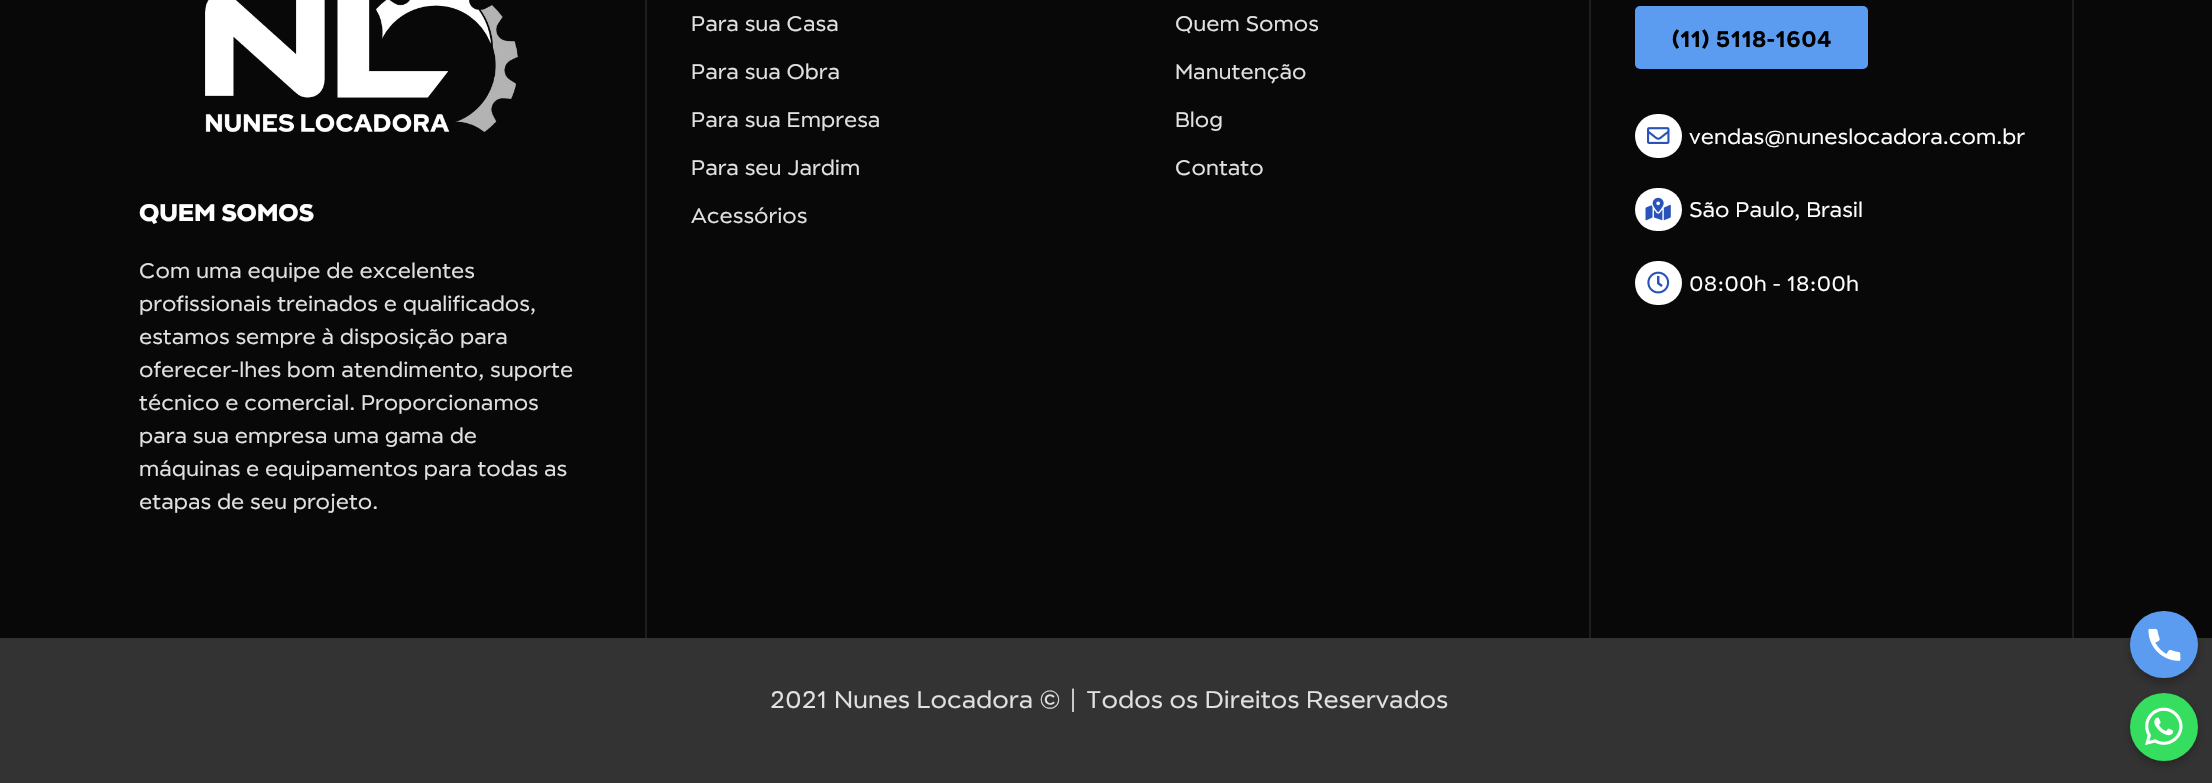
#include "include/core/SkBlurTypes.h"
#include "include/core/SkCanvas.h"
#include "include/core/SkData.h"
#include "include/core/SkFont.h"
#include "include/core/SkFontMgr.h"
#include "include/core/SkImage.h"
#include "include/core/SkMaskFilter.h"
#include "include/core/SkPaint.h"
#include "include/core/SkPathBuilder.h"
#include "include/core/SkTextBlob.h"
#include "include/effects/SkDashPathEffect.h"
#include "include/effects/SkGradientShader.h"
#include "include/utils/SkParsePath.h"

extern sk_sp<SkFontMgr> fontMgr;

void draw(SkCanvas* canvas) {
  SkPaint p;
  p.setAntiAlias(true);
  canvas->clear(SkColorSetRGB(8, 8, 8));
  p.setColor(SkColorSetRGB(28, 31, 28));
  canvas->drawRect(SkRect::MakeLTRB(1589, 0, 1591, 638), p);
  canvas->drawRect(SkRect::MakeLTRB(2072, 0, 2074, 638), p);
  p.setColor(SkColorSetRGB(91, 156, 240));
  canvas->drawRoundRect(SkRect::MakeLTRB(1635, 6, 1868, 69), 5, 5, p);
  p.setColor(SK_ColorWHITE);
  canvas->drawRoundRect(SkRect::MakeLTRB(1635, 114, 1682, 158), 22, 22, p);
  canvas->drawImageRect(SkImages::DeferredFromEncodedData(SkData::MakeFromFileName("images/1.png")), SkRect::MakeLTRB(1647, 127, 1670, 144), SkSamplingOptions());
  canvas->drawRoundRect(SkRect::MakeLTRB(1635, 188, 1682, 231), 21.5f, 21.5f, p);
  canvas->drawImageRect(SkImages::DeferredFromEncodedData(SkData::MakeFromFileName("images/2.png")), SkRect::MakeLTRB(1645, 197, 1671, 221), SkSamplingOptions());
  canvas->drawRoundRect(SkRect::MakeLTRB(1635, 261, 1682, 305), 22, 22, p);
  canvas->drawImageRect(SkImages::DeferredFromEncodedData(SkData::MakeFromFileName("images/3.png")), SkRect::MakeLTRB(1647, 271, 1670, 294), SkSamplingOptions());
  p.setColor(SkColorSetRGB(28, 31, 28));
  canvas->drawRect(SkRect::MakeLTRB(645, 0, 647, 638), p);
  canvas->drawImageRect(SkImages::DeferredFromEncodedData(SkData::MakeFromFileName("images/4.png")), SkRect::MakeLTRB(205, 0, 518, 132), SkSamplingOptions());
  p.setColor(SkColorSetRGB(51, 51, 51));
  canvas->drawRect(SkRect::MakeLTRB(0, 638, 2212, 783), p);
  p.setColor(SkColorSetARGB(64, 0, 0, 0));
  p.setMaskFilter(SkMaskFilter::MakeBlur(kNormal_SkBlurStyle, 4.5f));
  canvas->drawRoundRect(SkRect::MakeLTRB(2130, 615, 2198, 683), 34, 34, p);
  p.setMaskFilter(nullptr);
  p.setColor(SkColorSetRGB(91, 156, 240));
  canvas->drawRoundRect(SkRect::MakeLTRB(2130, 611, 2198, 678), 33.5f, 33.5f, p);
  canvas->drawImageRect(SkImages::DeferredFromEncodedData(SkData::MakeFromFileName("images/5.png")), SkRect::MakeLTRB(2148, 628, 2181, 661), SkSamplingOptions());
  p.setColor(SkColorSetARGB(64, 0, 0, 0));
  p.setMaskFilter(SkMaskFilter::MakeBlur(kNormal_SkBlurStyle, 4.5f));
  canvas->drawRoundRect(SkRect::MakeLTRB(2130, 698, 2198, 765), 33.5f, 33.5f, p);
  p.setMaskFilter(nullptr);
  p.setColor(SkColorSetRGB(53, 222, 95));
  canvas->drawCircle(2164, 727, 34, p);
  canvas->drawImageRect(SkImages::DeferredFromEncodedData(SkData::MakeFromFileName("images/6.png")), SkRect::MakeLTRB(2145, 707, 2183, 746), SkSamplingOptions());
  SkFont font1(fontMgr->matchFamilyStyle("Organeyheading", SkFontStyle::Normal()), 21);
  font1.setSubpixel(true);
  p.setColor(SkColorSetRGB(225, 225, 225));
  canvas->drawString("Para sua Casa", 691, 31, font1, p);
  canvas->drawString("Para sua Obra", 691, 79, font1, p);
  canvas->drawString("Para sua Empresa", 691, 127, font1, p);
  canvas->drawString("Para seu Jardim", 691, 175, font1, p);
  canvas->drawString("Acessórios", 691, 223, font1, p);
  canvas->drawString("Quem Somos", 1175, 31, font1, p);
  canvas->drawString("Manutenção", 1175, 79, font1, p);
  canvas->drawString("Blog", 1175, 127, font1, p);
  canvas->drawString("Contato", 1175, 175, font1, p);
  SkFont font2(fontMgr->matchFamilyStyle("Organeyheading", SkFontStyle(600, SkFontStyle::kNormal_Width, SkFontStyle::kUpright_Slant)), 22.5f);
  font2.setSubpixel(true);
  p.setColor(SK_ColorBLACK);
  canvas->drawString("(11) 5118-1604", 1671, 47, font2, p);
  p.setColor(SK_ColorWHITE);
  canvas->drawString("vendas@nuneslocadora.com.br", 1689, 144, font1, p);
  canvas->drawString("São Paulo, Brasil", 1689, 217, font1, p);
  canvas->drawString("08:00h - 18:00h", 1689, 291, font1, p);
  SkFont font3(fontMgr->matchFamilyStyle("Organeyheading", SkFontStyle::Bold()), 24);
  font3.setSubpixel(true);
  canvas->drawString("QUEM SOMOS", 139, 221, font3, p);
  p.setColor(SkColorSetRGB(225, 225, 225));
  canvas->drawString("Com uma equipe de excelentes", 139, 278, font1, p);
  canvas->drawString("profissionais treinados e qualificados,", 139, 311, font1, p);
  canvas->drawString("estamos sempre à disposição para", 139, 344, font1, p);
  canvas->drawString("oferecer-lhes bom atendimento, suporte", 139, 377, font1, p);
  canvas->drawString("técnico e comercial. Proporcionamos", 139, 410, font1, p);
  canvas->drawString("para sua empresa uma gama de", 139, 443, font1, p);
  canvas->drawString("máquinas e equipamentos para todas as", 139, 476, font1, p);
  canvas->drawString("etapas de seu projeto.", 139, 509, font1, p);
  SkFont font4(fontMgr->matchFamilyStyle("Organeyheading", SkFontStyle::Normal()), 24);
  font4.setSubpixel(true);
  canvas->drawString("2021 Nunes Locadora © | Todos os Direitos Reservados", 770, 708, font4, p);
}
